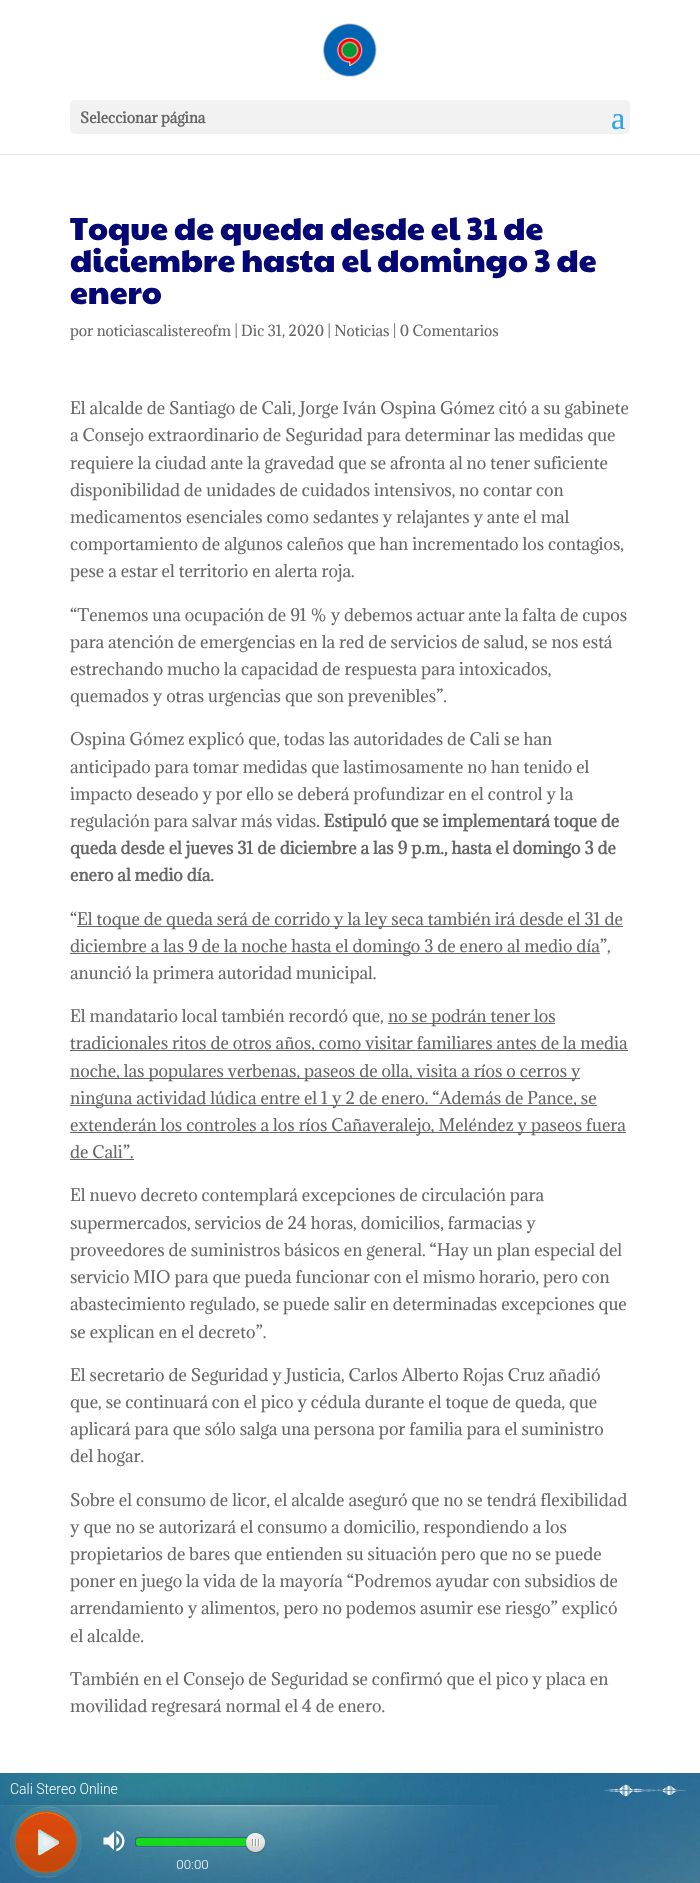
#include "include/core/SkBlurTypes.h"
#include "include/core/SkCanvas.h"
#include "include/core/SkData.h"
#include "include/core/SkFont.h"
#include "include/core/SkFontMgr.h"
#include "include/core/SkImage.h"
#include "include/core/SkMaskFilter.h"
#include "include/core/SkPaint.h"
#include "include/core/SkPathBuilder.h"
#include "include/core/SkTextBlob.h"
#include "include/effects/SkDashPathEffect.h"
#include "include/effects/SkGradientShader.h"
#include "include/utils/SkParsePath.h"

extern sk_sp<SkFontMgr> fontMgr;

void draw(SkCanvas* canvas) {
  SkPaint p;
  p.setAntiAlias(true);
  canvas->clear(SK_ColorWHITE);
  p.setColor(SkColorSetRGB(230, 230, 230));
  canvas->drawRect(SkRect::MakeLTRB(0, 154, 700, 155), p);
  canvas->drawImageRect(SkImages::DeferredFromEncodedData(SkData::MakeFromFileName("images/1.png")), SkRect::MakeLTRB(322, 23, 377, 77), SkSamplingOptions());
  p.setColor(SkColorSetRGB(242, 242, 242));
  canvas->drawRoundRect(SkRect::MakeLTRB(70, 100, 630, 134), 5, 5, p);
  p.setColor(SkColorSetRGB(102, 102, 102));
  canvas->drawRect(SkRect::MakeLTRB(77, 926, 623, 927), p);
  canvas->drawRect(SkRect::MakeLTRB(70, 953, 600, 954), p);
  canvas->drawRect(SkRect::MakeLTRB(388, 1023, 555, 1024), p);
  canvas->drawRect(SkRect::MakeLTRB(70, 1050, 628, 1051), p);
  canvas->drawRect(SkRect::MakeLTRB(70, 1078, 580, 1079), p);
  canvas->drawRect(SkRect::MakeLTRB(70, 1105, 597, 1106), p);
  canvas->drawRect(SkRect::MakeLTRB(70, 1132, 626, 1133), p);
  canvas->drawRect(SkRect::MakeLTRB(70, 1159, 134, 1160), p);
  canvas->drawImageRect(SkImages::DeferredFromEncodedData(SkData::MakeFromFileName("images/2.png")), SkRect::MakeLTRB(0, 1773, 700, 1883), SkSamplingOptions());
  SkFont font1(fontMgr->matchFamilyStyle("Adamina", SkFontStyle::Bold()), 14);
  font1.setSubpixel(true);
  canvas->drawString("Seleccionar página", 80, 123, font1, p);
  SkFont font2(fontMgr->matchFamilyStyle("Liberation Serif", SkFontStyle::Normal()), 32);
  font2.setSubpixel(true);
  p.setColor(SkColorSetRGB(46, 163, 242));
  canvas->drawString("a", 611, 129, font2, p);
  SkFont font3(fontMgr->matchFamilyStyle("Paytone One", SkFontStyle::Normal()), 32);
  font3.setSubpixel(true);
  p.setColor(SkColorSetRGB(5, 7, 117));
  canvas->drawString("Toque de queda desde el 31 de", 70, 240, font3, p);
  canvas->drawString("diciembre hasta el domingo 3 de", 70, 272, font3, p);
  canvas->drawString("enero", 70, 304, font3, p);
  SkFont font4(fontMgr->matchFamilyStyle("Adamina", SkFontStyle::Normal()), 14);
  font4.setSubpixel(true);
  p.setColor(SkColorSetRGB(102, 102, 102));
  canvas->drawString("por noticiascalistereofm | Dic 31, 2020 | Noticias | 0 Comentarios", 70, 336, font4, p);
  SkFont font5(fontMgr->matchFamilyStyle("Adamina", SkFontStyle::Normal()), 16);
  font5.setSubpixel(true);
  canvas->drawString("El alcalde de Santiago de Cali, Jorge Iván Ospina Gómez citó a su gabinete", 70, 414, font5, p);
  canvas->drawString("a Consejo extraordinario de Seguridad para determinar las medidas que", 70, 441, font5, p);
  canvas->drawString("requiere la ciudad ante la gravedad que se afronta al no tener suficiente", 70, 469, font5, p);
  canvas->drawString("disponibilidad de unidades de cuidados intensivos, no contar con", 70, 496, font5, p);
  canvas->drawString("medicamentos esenciales como sedantes y relajantes y ante el mal", 70, 523, font5, p);
  canvas->drawString("comportamiento de algunos caleños que han incrementado los contagios,", 70, 550, font5, p);
  canvas->drawString("pese a estar el territorio en alerta roja.", 70, 577, font5, p);
  canvas->drawString("“Tenemos una ocupación de 91 % y debemos actuar ante la falta de cupos", 70, 621, font5, p);
  canvas->drawString("para atención de emergencias en la red de servicios de salud, se nos está", 70, 648, font5, p);
  canvas->drawString("estrechando mucho la capacidad de respuesta para intoxicados,", 70, 675, font5, p);
  canvas->drawString("quemados y otras urgencias que son prevenibles”.", 70, 702, font5, p);
  canvas->drawString("Ospina Gómez explicó que, todas las autoridades de Cali se han", 70, 745, font5, p);
  canvas->drawString("anticipado para tomar medidas que lastimosamente no han tenido el", 70, 773, font5, p);
  canvas->drawString("impacto deseado y por ello se deberá profundizar en el control y la", 70, 800, font5, p);
  canvas->drawString("regulación para salvar más vidas", 70, 827, font5, p);
  SkFont font6(fontMgr->matchFamilyStyle("Adamina", SkFontStyle::Bold()), 16);
  font6.setSubpixel(true);
  canvas->drawString(". Estipuló que se implementará toque de", 316, 827, font6, p);
  canvas->drawString("queda desde el jueves 31 de diciembre a las 9 p.m., hasta el domingo 3 de", 70, 854, font6, p);
  canvas->drawString("enero al medio día.", 70, 881, font6, p);
  canvas->drawString("“", 70, 925, font5, p);
  canvas->drawString("El toque de queda será de corrido y la ley seca también irá desde el 31 de", 77, 925, font5, p);
  canvas->drawString("diciembre a las 9 de la noche hasta el domingo 3 de enero al medio día”,", 70, 952, font5, p);
  canvas->drawString("anunció la primera autoridad municipal.", 70, 979, font5, p);
  canvas->drawString("El mandatario local también recordó que,", 70, 1022, font5, p);
  canvas->drawString("no se podrán tener los", 388, 1022, font5, p);
  canvas->drawString("tradicionales ritos de otros años, como visitar familiares antes de la media", 70, 1049, font5, p);
  canvas->drawString("noche, las populares verbenas, paseos de olla, visita a ríos o cerros y", 70, 1077, font5, p);
  canvas->drawString("ninguna actividad lúdica entre el 1 y 2 de enero. “Además de Pance, se", 70, 1104, font5, p);
  canvas->drawString("extenderán los controles a los ríos Cañaveralejo, Meléndez y paseos fuera", 70, 1131, font5, p);
  canvas->drawString("de Cali”.", 70, 1158, font5, p);
  canvas->drawString("El nuevo decreto contemplará excepciones de circulación para", 70, 1201, font5, p);
  canvas->drawString("supermercados, servicios de 24 horas, domicilios, farmacias y", 70, 1229, font5, p);
  canvas->drawString("proveedores de suministros básicos en general. “Hay un plan especial del", 70, 1256, font5, p);
  canvas->drawString("servicio MIO para que pueda funcionar con el mismo horario, pero con", 70, 1283, font5, p);
  canvas->drawString("abastecimiento regulado, se puede salir en determinadas excepciones que", 70, 1310, font5, p);
  canvas->drawString("se explican en el decreto”.", 70, 1338, font5, p);
  canvas->drawString("El secretario de Seguridad y Justicia, Carlos Alberto Rojas Cruz añadió", 70, 1381, font5, p);
  canvas->drawString("que, se continuará con el pico y cédula durante el toque de queda, que", 70, 1408, font5, p);
  canvas->drawString("aplicará para que sólo salga una persona por familia para el suministro", 70, 1435, font5, p);
  canvas->drawString("del hogar.", 70, 1462, font5, p);
  canvas->drawString("Sobre el consumo de licor, el alcalde aseguró que no se tendrá flexibilidad", 70, 1506, font5, p);
  canvas->drawString("y que no se autorizará el consumo a domicilio, respondiendo a los", 70, 1533, font5, p);
  canvas->drawString("propietarios de bares que entienden su situación pero que no se puede", 70, 1560, font5, p);
  canvas->drawString("poner en juego la vida de la mayoría “Podremos ayudar con subsidios de", 70, 1587, font5, p);
  canvas->drawString("arrendamiento y alimentos, pero no podemos asumir ese riesgo” explicó", 70, 1614, font5, p);
  canvas->drawString("el alcalde.", 70, 1642, font5, p);
  canvas->drawString("También en el Consejo de Seguridad se confirmó que el pico y placa en", 70, 1685, font5, p);
  canvas->drawString("movilidad regresará normal el 4 de enero.", 70, 1712, font5, p);
}
